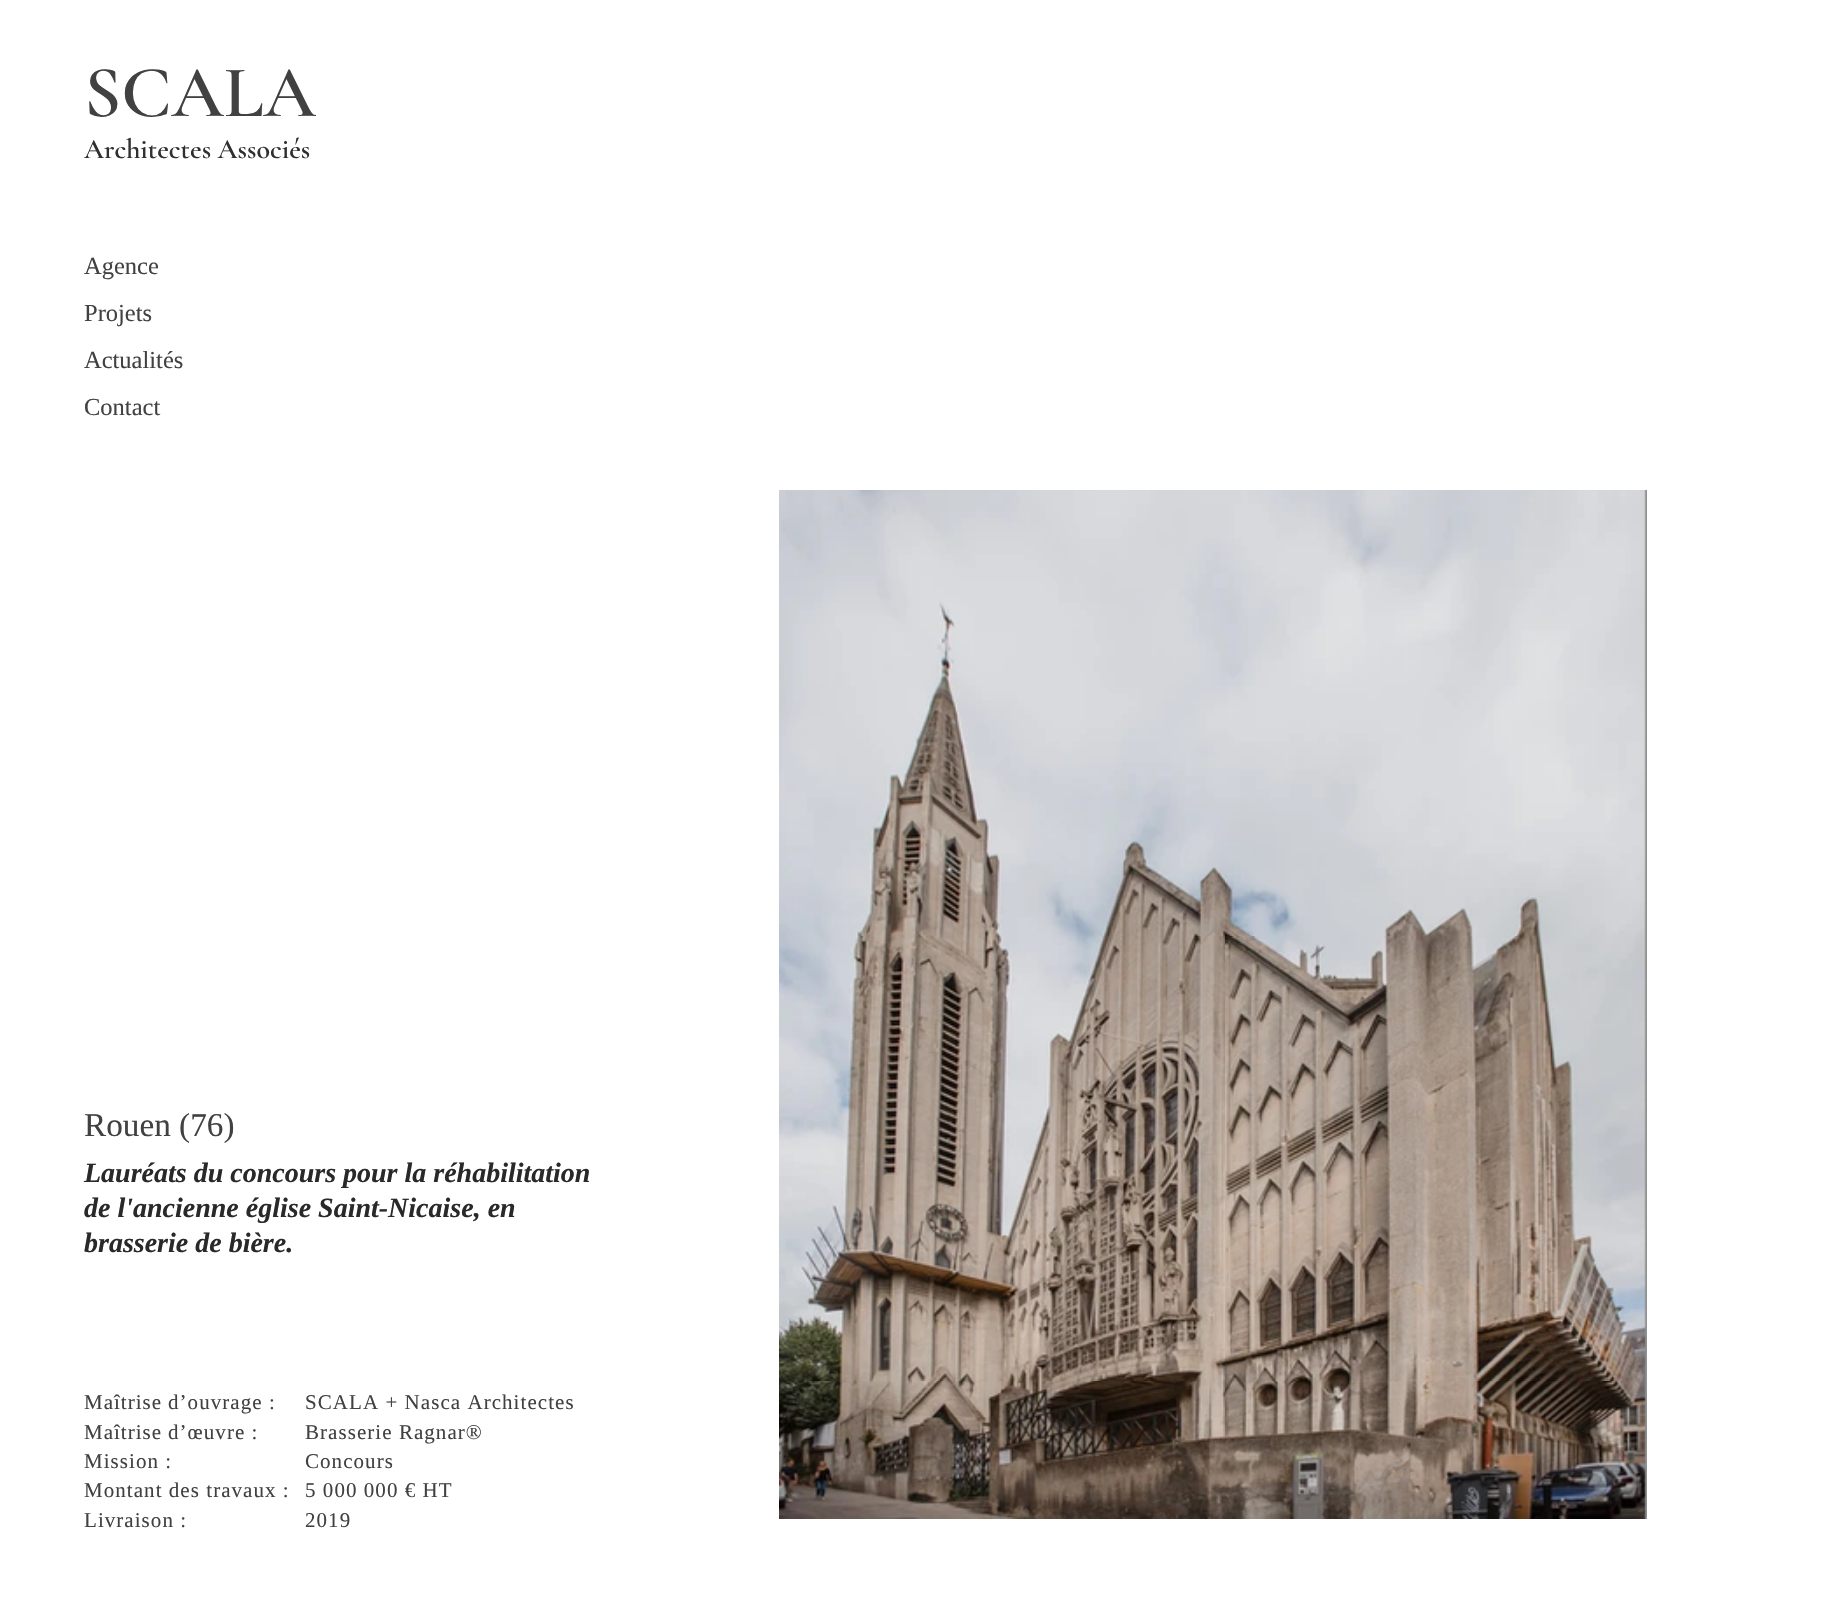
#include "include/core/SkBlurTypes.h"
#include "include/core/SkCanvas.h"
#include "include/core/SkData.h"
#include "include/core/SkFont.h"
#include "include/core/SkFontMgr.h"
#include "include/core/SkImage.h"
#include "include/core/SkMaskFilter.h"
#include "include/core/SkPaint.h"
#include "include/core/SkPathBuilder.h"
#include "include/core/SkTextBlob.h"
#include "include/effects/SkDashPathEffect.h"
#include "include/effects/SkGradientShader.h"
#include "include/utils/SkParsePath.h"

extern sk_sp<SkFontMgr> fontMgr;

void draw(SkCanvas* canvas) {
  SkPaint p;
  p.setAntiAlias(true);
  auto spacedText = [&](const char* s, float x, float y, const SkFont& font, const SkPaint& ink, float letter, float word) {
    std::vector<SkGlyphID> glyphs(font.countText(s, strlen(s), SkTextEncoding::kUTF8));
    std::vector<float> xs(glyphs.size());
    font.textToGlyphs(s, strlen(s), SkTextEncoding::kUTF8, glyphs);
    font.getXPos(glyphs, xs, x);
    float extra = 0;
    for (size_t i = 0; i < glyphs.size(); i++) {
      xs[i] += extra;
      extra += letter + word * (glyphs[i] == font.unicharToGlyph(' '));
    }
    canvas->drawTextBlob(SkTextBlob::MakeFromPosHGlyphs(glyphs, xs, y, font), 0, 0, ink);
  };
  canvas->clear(SK_ColorWHITE);
  p.setColor(SkColorSetRGB(144, 144, 144));
  canvas->drawRect(SkRect::MakeLTRB(1644, 490, 1647, 1519), p);
  canvas->drawImageRect(SkImages::DeferredFromEncodedData(SkData::MakeFromFileName("images/1.png")), SkRect::MakeLTRB(779, 490, 1646, 1519), SkSamplingOptions());
  SkFont font1(fontMgr->matchFamilyStyle("Cormorant Garamond", SkFontStyle(600, SkFontStyle::kNormal_Width, SkFontStyle::kUpright_Slant)), 73.5f);
  font1.setSubpixel(true);
  p.setColor(SkColorSetRGB(65, 65, 65));
  canvas->drawString("SCALA", 84, 116, font1, p);
  SkFont font2(fontMgr->matchFamilyStyle("Cormorant Garamond", SkFontStyle(600, SkFontStyle::kNormal_Width, SkFontStyle::kUpright_Slant)), 28);
  font2.setSubpixel(true);
  p.setColor(SkColorSetRGB(48, 48, 48));
  canvas->drawString("Architectes Associés", 84, 158, font2, p);
  SkFont font3(fontMgr->matchFamilyStyle("Liberation Serif", SkFontStyle::Normal()), 24.5f);
  font3.setSubpixel(true);
  p.setColor(SkColorSetRGB(65, 65, 65));
  canvas->drawString("Agence", 84, 274, font3, p);
  canvas->drawString("Projets", 84, 321, font3, p);
  canvas->drawString("Actualités", 84, 368, font3, p);
  canvas->drawString("Contact", 84, 415, font3, p);
  SkFont font4(fontMgr->matchFamilyStyle("Liberation Serif", SkFontStyle::Normal()), 33.25f);
  font4.setSubpixel(true);
  canvas->drawString("Rouen (76)", 84, 1136, font4, p);
  SkFont font5(fontMgr->matchFamilyStyle("Liberation Serif", SkFontStyle::BoldItalic()), 28);
  font5.setSubpixel(true);
  p.setColor(SkColorSetRGB(41, 41, 41));
  canvas->drawString("Lauréats du concours pour la réhabilitation", 84, 1182, font5, p);
  canvas->drawString("de l'ancienne église Saint-Nicaise, en", 84, 1217, font5, p);
  canvas->drawString("brasserie de bière.", 84, 1252, font5, p);
  SkFont font6(fontMgr->matchFamilyStyle("Liberation Serif", SkFontStyle::Normal()), 21);
  font6.setSubpixel(true);
  p.setColor(SkColorSetRGB(65, 65, 65));
  spacedText("Maîtrise", 84, 1409, font6, p, 1, 0);
  spacedText("d’ouvrage :", 168, 1409, font6, p, 1.05f, 0);
  spacedText("Maîtrise", 84, 1439, font6, p, 1, 0);
  spacedText("d’œuvre :", 168, 1439, font6, p, 1.05f, 0);
  spacedText("Mission :", 84, 1468, font6, p, 1.05f, 0);
  spacedText("Montant des travaux :", 84, 1497, font6, p, 1.05f, 0);
  spacedText("Livraison :", 84, 1527, font6, p, 1.05f, 0);
  spacedText("SCALA + Nasca Architectes", 305, 1409, font6, p, 1.05f, 0);
  spacedText("Brasserie Ragnar®", 305, 1439, font6, p, 1.05f, 0);
  spacedText("Concours", 305, 1468, font6, p, 1.05f, 0);
  spacedText("5 000 000 € HT", 305, 1497, font6, p, 1.05f, 0);
  spacedText("2019", 305, 1527, font6, p, 1.05f, 0);
}
